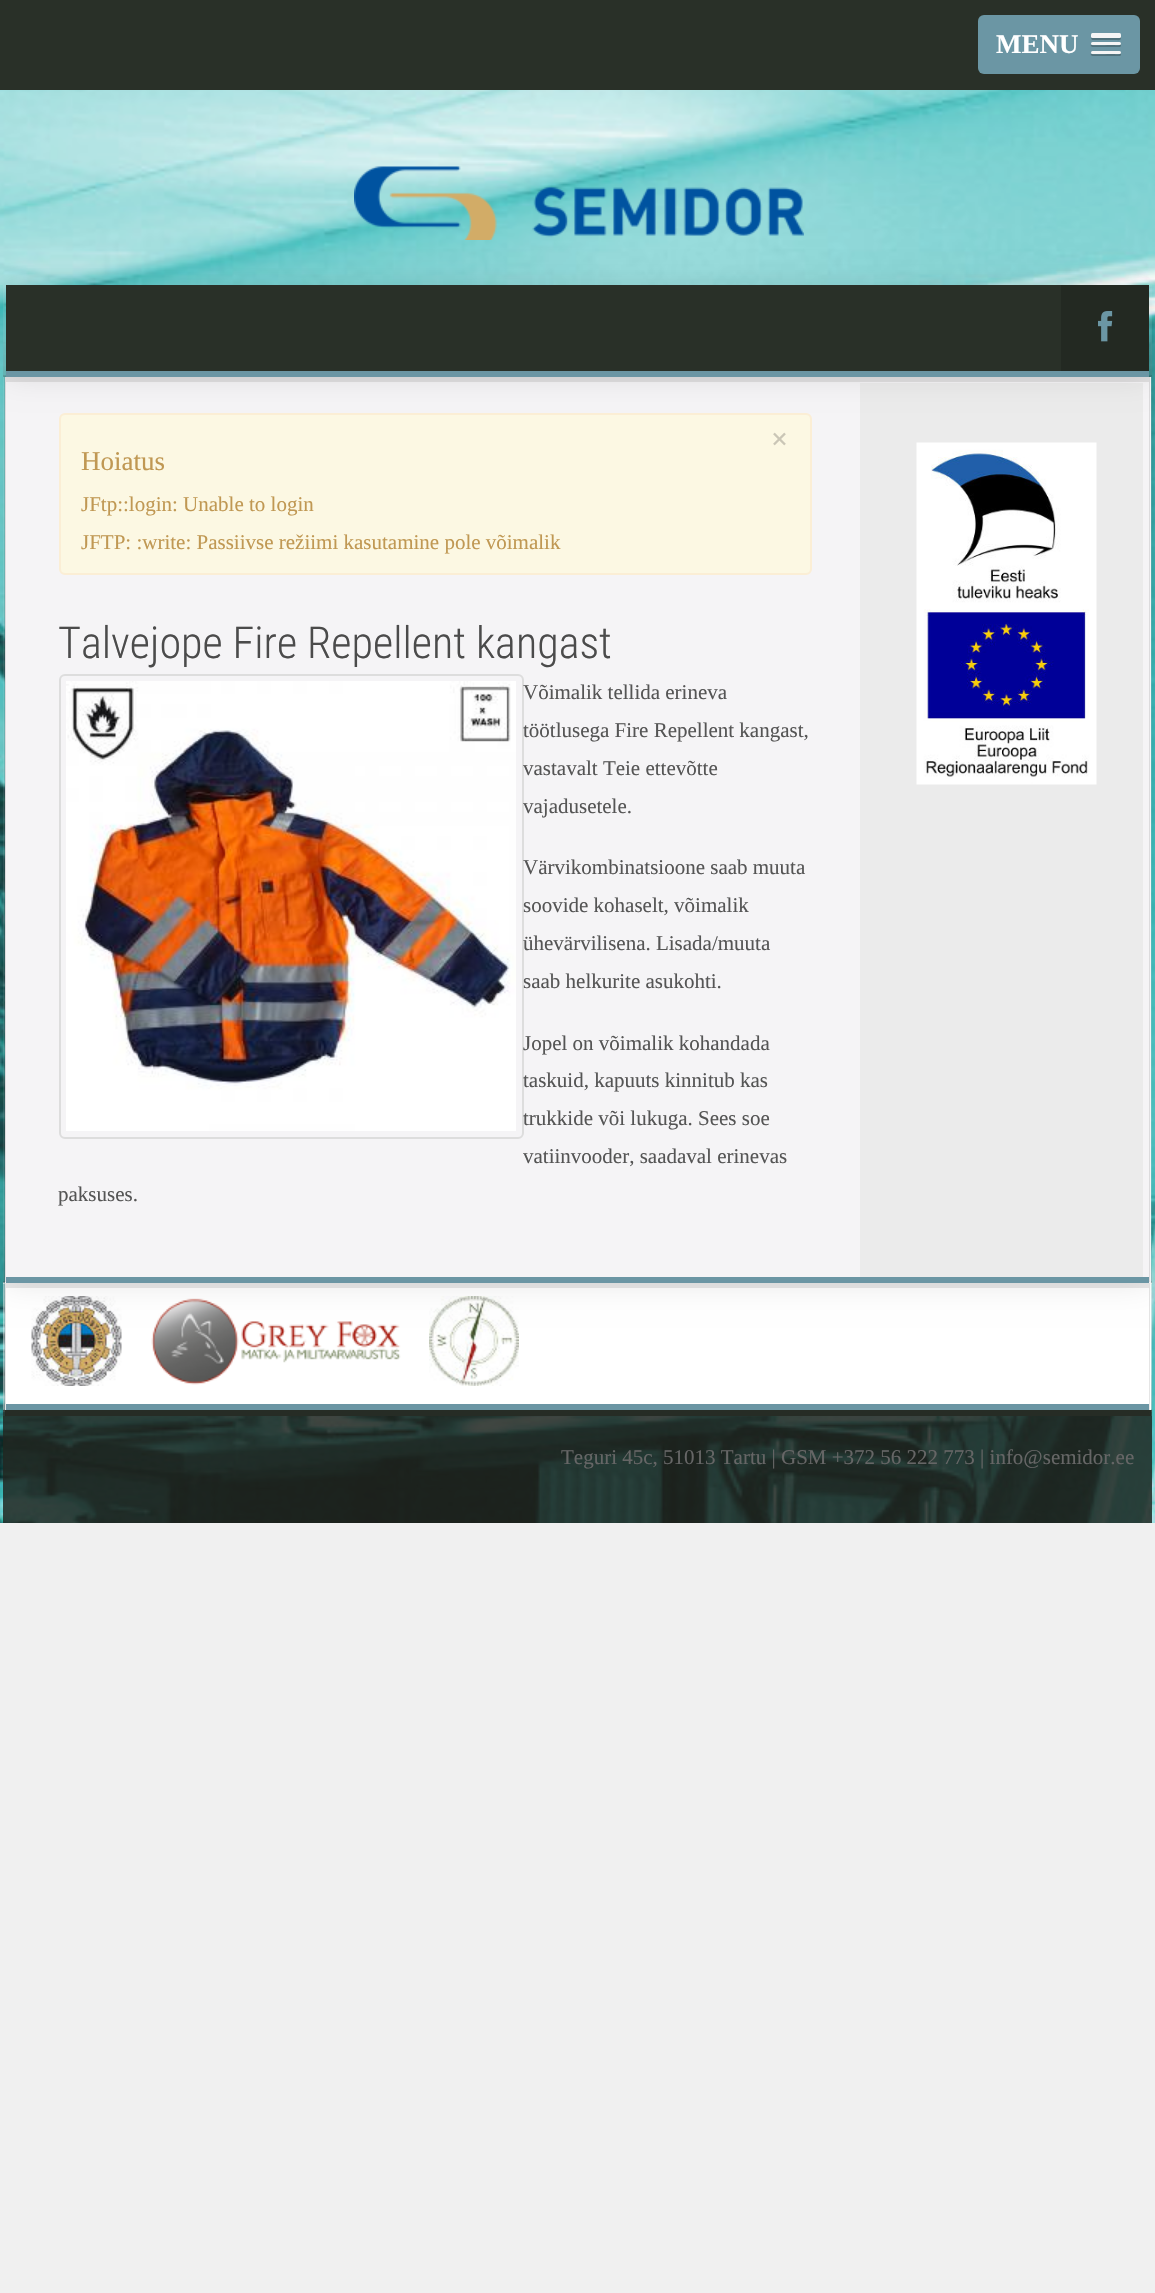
#include "include/core/SkBlurTypes.h"
#include "include/core/SkCanvas.h"
#include "include/core/SkData.h"
#include "include/core/SkFont.h"
#include "include/core/SkFontMgr.h"
#include "include/core/SkImage.h"
#include "include/core/SkMaskFilter.h"
#include "include/core/SkPaint.h"
#include "include/core/SkPathBuilder.h"
#include "include/core/SkTextBlob.h"
#include "include/effects/SkDashPathEffect.h"
#include "include/effects/SkGradientShader.h"
#include "include/utils/SkParsePath.h"

extern sk_sp<SkFontMgr> fontMgr;

void draw(SkCanvas* canvas) {
  SkPaint p;
  p.setAntiAlias(true);
  canvas->clear(SkColorSetRGB(240, 240, 240));
  p.setColor(SkColorSetRGB(41, 48, 40));
  canvas->drawRect(SkRect::MakeLTRB(0, 0, 1155, 90), p);
  p.setColor(SkColorSetRGB(107, 150, 164));
  canvas->drawRoundRect(SkRect::MakeLTRB(978, 15, 1140, 74), 6, 6, p);
  p.setColor(SkColorSetRGB(80, 113, 123));
  canvas->drawPath(SkPathBuilder().moveTo(1091, 37).cubicTo(1091, 41, 1093, 40, 1097, 40).lineTo(1115, 40).cubicTo(1118.5f, 40, 1121, 41, 1121, 37.5f).cubicTo(1121, 36.5f, 1121, 36, 1120.5f, 35.5f).lineTo(1120.5f, 36).cubicTo(1120.5f, 37, 1120, 37.5f, 1119, 37.5f).lineTo(1092, 37.5f).close().detach(), p);
  p.setColor(SkColorSetRGB(245, 245, 245));
  canvas->drawRoundRect(SkRect::MakeLTRB(1091, 33, 1121, 38), 1.5f, 1.5f, p);
  p.setColor(SkColorSetRGB(80, 113, 123));
  canvas->drawPath(SkPathBuilder().moveTo(1091, 45).cubicTo(1089.5f, 47.5f, 1094, 47, 1097, 47).lineTo(1120, 47).cubicTo(1121, 46.5f, 1121.5f, 45, 1120.5f, 44).cubicTo(1119.5f, 46, 1115, 45, 1114.5f, 45).cubicTo(1111.5f, 45, 1092.5f, 45.5f, 1091, 45).close().detach(), p);
  p.setColor(SkColorSetRGB(245, 245, 245));
  canvas->drawRoundRect(SkRect::MakeLTRB(1091, 42, 1121, 45), 1.5f, 1.5f, p);
  p.setColor(SkColorSetRGB(80, 113, 123));
  canvas->drawPath(SkPathBuilder().moveTo(1091, 54).cubicTo(1089.5f, 56.5f, 1094, 56, 1097, 56).lineTo(1120, 56).cubicTo(1121, 55.5f, 1121.5f, 54, 1120.5f, 53).cubicTo(1119.5f, 55, 1115, 54, 1114.5f, 54).cubicTo(1111.5f, 54, 1092.5f, 54.5f, 1091, 54).close().detach(), p);
  p.setColor(SkColorSetRGB(245, 245, 245));
  canvas->drawRoundRect(SkRect::MakeLTRB(1091, 51, 1121, 54), 1.5f, 1.5f, p);
  canvas->drawImageRect(SkImages::DeferredFromEncodedData(SkData::MakeFromFileName("images/1.png")), SkRect::MakeLTRB(0, 90, 1155, 1523), SkSamplingOptions());
  p.setColor(SkColorSetARGB(26, 240, 240, 240));
  canvas->drawRect(SkRect::MakeLTRB(0, 90, 1155, 285), p);
  canvas->drawImageRect(SkImages::DeferredFromEncodedData(SkData::MakeFromFileName("images/2.png")), SkRect::MakeLTRB(354, 166, 804, 240), SkSamplingOptions());
  p.setColor(SkColorSetARGB(128, 255, 255, 255));
  canvas->drawRect(SkRect::MakeLTRB(3, 1282, 1152, 1284), p);
  p.setColor(SkColorSetARGB(26, 255, 255, 255));
  canvas->drawRect(SkRect::MakeLTRB(3, 377, 1152, 1283), p);
  {
    const SkColor colors[] = {SkColorSetARGB(26, 0, 0, 0), SkColorSetARGB(0, 0, 0, 0), SkColorSetARGB(0, 0, 0, 0)};
    const float stops[] = {0, 0.05f, 1};
    const SkPoint ends[] = {{578, 1283}, {578, 377}};
    p.setShader(SkGradientShader::MakeLinear(ends, colors, stops, 3, SkTileMode::kClamp));
    p.setAlpha(255);
  }
  canvas->drawRect(SkRect::MakeLTRB(3, 1247, 1152, 1283), p);
  p.setShader(nullptr);
  p.setColor(SkColorSetARGB(26, 0, 0, 0));
  canvas->drawRect(SkRect::MakeLTRB(3, 1281, 1152, 1283), p);
  p.setColor(SkColorSetARGB(128, 255, 255, 255));
  canvas->drawRect(SkRect::MakeLTRB(3, 1283, 1152, 1410), p);
  {
    const SkColor colors[] = {SkColorSetARGB(26, 0, 0, 0), SkColorSetARGB(0, 0, 0, 0), SkColorSetARGB(0, 0, 0, 0)};
    const float stops[] = {0, 0.35f, 1};
    const SkPoint ends[] = {{578, 1410}, {578, 1283}};
    p.setShader(SkGradientShader::MakeLinear(ends, colors, stops, 3, SkTileMode::kClamp));
    p.setAlpha(255);
  }
  canvas->drawRect(SkRect::MakeLTRB(3, 1375, 1152, 1410), p);
  p.setShader(nullptr);
  p.setColor(SkColorSetARGB(128, 255, 255, 255));
  canvas->drawRect(SkRect::MakeLTRB(3, 1410, 1152, 1412), p);
  p.setColor(SkColorSetARGB(26, 0, 0, 0));
  canvas->drawRect(SkRect::MakeLTRB(3, 1409, 1152, 1411), p);
  p.setMaskFilter(SkMaskFilter::MakeBlur(kNormal_SkBlurStyle, 15));
  canvas->drawRect(SkRect::MakeLTRB(5, 1283, 1151, 1410), p);
  p.setMaskFilter(nullptr);
  p.setColor(SK_ColorWHITE);
  canvas->drawRect(SkRect::MakeLTRB(5, 1283, 1151, 1410), p);
  p.setColor(SkColorSetARGB(23, 0, 0, 0));
  canvas->drawPath(SkPathBuilder().moveTo(4, 1282).lineTo(1150, 1282).lineTo(1149, 1288).lineTo(6, 1288).close().detach(), p);
  p.setColor(SkColorSetARGB(26, 0, 0, 0));
  canvas->drawPath(SkPathBuilder().moveTo(1150, 1282).lineTo(1150, 1410).lineTo(1149, 1410).lineTo(1149, 1288).close().detach(), p);
  canvas->drawPath(SkPathBuilder().moveTo(4, 1410).lineTo(4, 1282).lineTo(6, 1288).lineTo(6, 1410).close().detach(), p);
  canvas->drawImageRect(SkImages::DeferredFromEncodedData(SkData::MakeFromFileName("images/6.png")), SkRect::MakeLTRB(31, 1296, 122, 1386), SkSamplingOptions());
  canvas->drawImageRect(SkImages::DeferredFromEncodedData(SkData::MakeFromFileName("images/7.png")), SkRect::MakeLTRB(151, 1298, 401, 1385), SkSamplingOptions());
  canvas->drawImageRect(SkImages::DeferredFromEncodedData(SkData::MakeFromFileName("images/8.png")), SkRect::MakeLTRB(429, 1296, 519, 1386), SkSamplingOptions());
  p.setMaskFilter(SkMaskFilter::MakeBlur(kNormal_SkBlurStyle, 15));
  canvas->drawRect(SkRect::MakeLTRB(5, 377, 1151, 1283), p);
  p.setMaskFilter(nullptr);
  p.setColor(SkColorSetRGB(245, 244, 246));
  canvas->drawRect(SkRect::MakeLTRB(5, 377, 1151, 1283), p);
  p.setColor(SkColorSetARGB(23, 0, 0, 0));
  canvas->drawPath(SkPathBuilder().moveTo(4, 376).lineTo(1150, 376).lineTo(1149, 382).lineTo(6, 382).close().detach(), p);
  p.setColor(SkColorSetARGB(26, 0, 0, 0));
  canvas->drawPath(SkPathBuilder().moveTo(1150, 376).lineTo(1150, 1282).lineTo(1149, 1282).lineTo(1149, 382).close().detach(), p);
  canvas->drawPath(SkPathBuilder().moveTo(4, 1282).lineTo(4, 376).lineTo(6, 382).lineTo(6, 1282).close().detach(), p);
  p.setColor(SkColorSetARGB(26, 240, 240, 240));
  canvas->drawRect(SkRect::MakeLTRB(3, 285, 1152, 377), p);
  {
    const SkColor colors[] = {SkColorSetARGB(26, 0, 0, 0), SkColorSetARGB(0, 0, 0, 0), SkColorSetARGB(0, 0, 0, 0)};
    const float stops[] = {0, 0.49f, 1};
    const SkPoint ends[] = {{578, 377}, {578, 285}};
    p.setShader(SkGradientShader::MakeLinear(ends, colors, stops, 3, SkTileMode::kClamp));
    p.setAlpha(255);
  }
  canvas->drawRect(SkRect::MakeLTRB(3, 342, 1152, 377), p);
  p.setShader(nullptr);
  p.setColor(SkColorSetARGB(26, 0, 0, 0));
  canvas->drawRect(SkRect::MakeLTRB(3, 375, 1152, 377), p);
  p.setColor(SkColorSetRGB(252, 248, 227));
  canvas->drawRoundRect(SkRect::MakeLTRB(60, 414, 811, 574), 5, 5, p);
  p.setStyle(SkPaint::kStroke_Style);
  p.setStrokeWidth(2);
  p.setColor(SkColorSetRGB(251, 238, 213));
  canvas->drawRoundRect(SkRect::MakeLTRB(60, 414, 811, 574), 5, 5, p);
  p.setStyle(SkPaint::kFill_Style);
  p.setColor(SkColorSetRGB(235, 235, 235));
  canvas->drawRect(SkRect::MakeLTRB(860, 383, 1143, 1277), p);
  p.setColor(SkColorSetARGB(26, 0, 0, 0));
  p.setMaskFilter(SkMaskFilter::MakeBlur(kNormal_SkBlurStyle, 15));
  canvas->drawRect(SkRect::MakeLTRB(6, 285, 1149, 377), p);
  p.setMaskFilter(nullptr);
  p.setColor(SkColorSetRGB(41, 48, 40));
  canvas->drawRect(SkRect::MakeLTRB(6, 285, 1061, 371), p);
  p.setColor(SkColorSetRGB(107, 150, 164));
  canvas->drawRect(SkRect::MakeLTRB(6, 371, 1149, 377), p);
  p.setColor(SkColorSetRGB(35, 41, 34));
  canvas->drawRect(SkRect::MakeLTRB(1061, 285, 1149, 371), p);
  canvas->drawImageRect(SkImages::DeferredFromEncodedData(SkData::MakeFromFileName("images/3.png")), SkRect::MakeLTRB(1098, 311, 1113, 342), SkSamplingOptions());
  p.setColor(SkColorSetRGB(107, 150, 164));
  canvas->drawRect(SkRect::MakeLTRB(6, 1277, 1149, 1283), p);
  p.setStyle(SkPaint::kStroke_Style);
  p.setColor(SkColorSetRGB(221, 221, 221));
  canvas->drawRoundRect(SkRect::MakeLTRB(60, 675, 523, 1138), 5, 5, p);
  canvas->drawImageRect(SkImages::DeferredFromEncodedData(SkData::MakeFromFileName("images/4.png")), SkRect::MakeLTRB(66, 681, 516, 1131), SkSamplingOptions());
  canvas->drawImageRect(SkImages::DeferredFromEncodedData(SkData::MakeFromFileName("images/5.png")), SkRect::MakeLTRB(916, 442, 1097, 785), SkSamplingOptions());
  p.setStyle(SkPaint::kFill_Style);
  p.setColor(SkColorSetRGB(107, 150, 164));
  canvas->drawRect(SkRect::MakeLTRB(6, 1404, 1149, 1410), p);
  p.setColor(SkColorSetARGB(204, 41, 48, 40));
  canvas->drawRect(SkRect::MakeLTRB(3, 1410, 1152, 1523), p);
  p.setColor(SkColorSetRGB(41, 48, 40));
  canvas->drawRect(SkRect::MakeLTRB(5, 1410, 1151, 1416), p);
  p.setColor(SkColorSetARGB(23, 0, 0, 0));
  canvas->drawPath(SkPathBuilder().moveTo(4, 1410).lineTo(1150, 1410).lineTo(1149, 1416).lineTo(6, 1416).close().detach(), p);
  p.setColor(SkColorSetRGB(37, 43, 36));
  canvas->drawPath(SkPathBuilder().moveTo(1150.5f, 1410).lineTo(1150.5f, 1416).lineTo(1149, 1416).close().detach(), p);
  p.setColor(SkColorSetARGB(26, 0, 0, 0));
  canvas->drawPath(SkPathBuilder().moveTo(4.5f, 1416).lineTo(4.5f, 1410).lineTo(6, 1416).close().detach(), p);
  p.setColor(SkColorSetARGB(51, 0, 0, 0));
  canvas->drawRect(SkRect::MakeLTRB(3, 1416, 1152, 1523), p);
  SkFont font1(fontMgr->matchFamilyStyle("Liberation Serif", SkFontStyle::Bold()), 27);
  font1.setSubpixel(true);
  p.setColor(SK_ColorWHITE);
  canvas->drawString("MENU", 996, 53, font1, p);
  SkFont font2(fontMgr->matchFamilyStyle("Liberation Serif", SkFontStyle::Bold()), 30);
  font2.setSubpixel(true);
  p.setColor(SkColorSetRGB(202, 198, 182));
  canvas->drawString("×", 771, 449, font2, p);
  SkFont font3(fontMgr->matchFamilyStyle("Liberation Serif", SkFontStyle::Normal()), 27);
  font3.setSubpixel(true);
  p.setColor(SkColorSetRGB(192, 152, 83));
  canvas->drawString("Hoiatus", 81, 470, font3, p);
  SkFont font4(fontMgr->matchFamilyStyle("Liberation Serif", SkFontStyle::Normal()), 21);
  font4.setSubpixel(true);
  canvas->drawString("JFtp::login: Unable to login", 81, 511, font4, p);
  canvas->drawString("JFTP: :write: Passiivse režiimi kasutamine pole võimalik", 81, 549, font4, p);
  SkFont font5(fontMgr->matchFamilyStyle("Roboto Condensed", SkFontStyle(300, SkFontStyle::kNormal_Width, SkFontStyle::kUpright_Slant)), 44.1f);
  font5.setSubpixel(true);
  p.setColor(SkColorSetRGB(75, 75, 75));
  canvas->drawString("Talvejope Fire Repellent kangast", 58, 658, font5, p);
  p.setColor(SkColorSetRGB(85, 85, 85));
  canvas->drawString("Võimalik tellida erineva", 523, 699, font4, p);
  canvas->drawString("töötlusega Fire Repellent kangast,", 523, 737, font4, p);
  canvas->drawString("vastavalt Teie ettevõtte", 523, 775, font4, p);
  canvas->drawString("vajadusetele.", 523, 813, font4, p);
  canvas->drawString("Värvikombinatsioone saab muuta", 523, 874, font4, p);
  canvas->drawString("soovide kohaselt, võimalik", 523, 912, font4, p);
  canvas->drawString("ühevärvilisena. Lisada/muuta", 523, 950, font4, p);
  canvas->drawString("saab helkurite asukohti.", 523, 988, font4, p);
  canvas->drawString("Jopel on võimalik kohandada", 523, 1050, font4, p);
  canvas->drawString("taskuid, kapuuts kinnitub kas", 523, 1087, font4, p);
  canvas->drawString("trukkide või lukuga. Sees soe", 523, 1125, font4, p);
  canvas->drawString("vatiinvooder, saadaval erinevas", 523, 1163, font4, p);
  canvas->drawString("paksuses.", 58, 1201, font4, p);
  p.setColor(SkColorSetRGB(102, 102, 102));
  canvas->drawString("Teguri 45c, 51013 Tartu | GSM +372 56 222 773 | info@semidor.ee", 561, 1464, font4, p);
}
